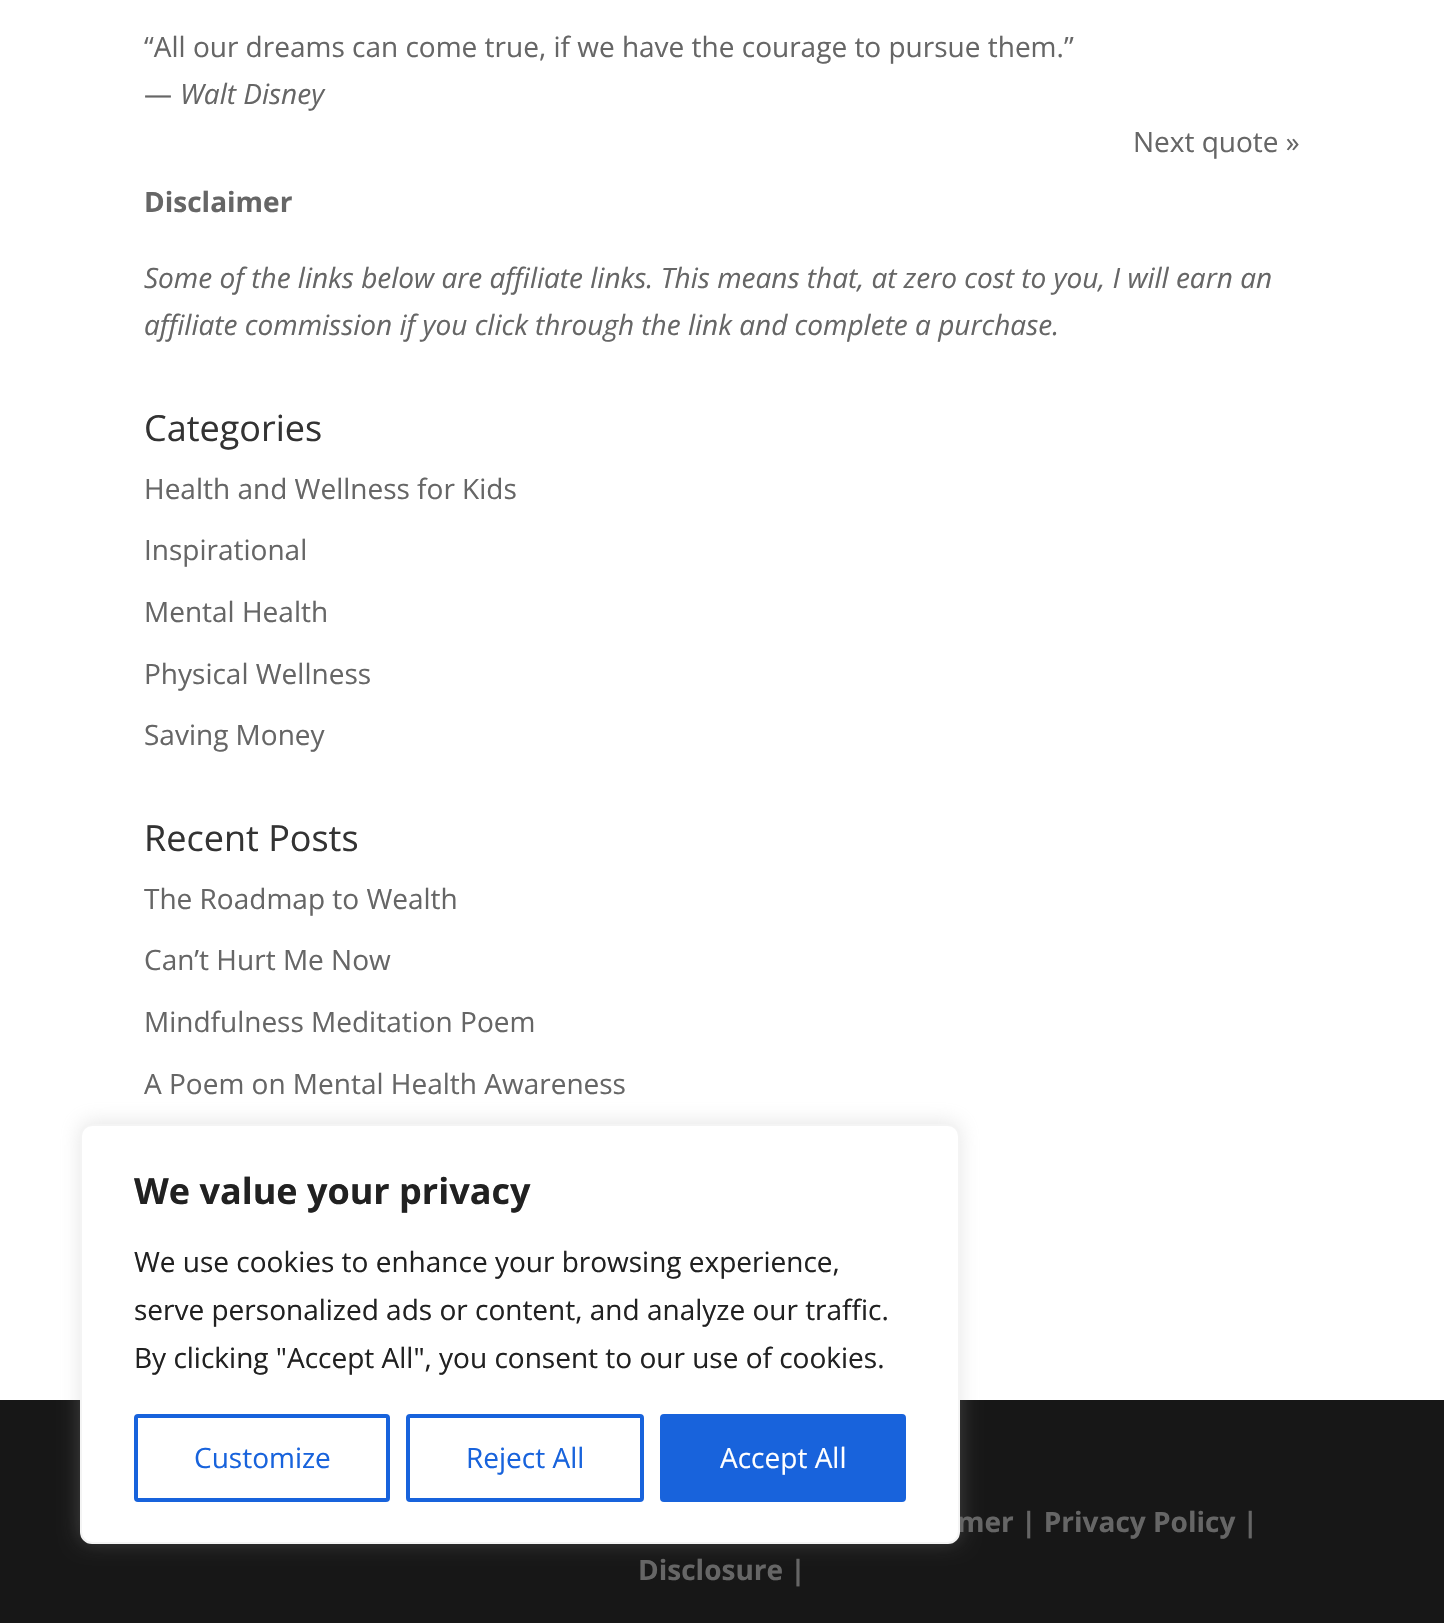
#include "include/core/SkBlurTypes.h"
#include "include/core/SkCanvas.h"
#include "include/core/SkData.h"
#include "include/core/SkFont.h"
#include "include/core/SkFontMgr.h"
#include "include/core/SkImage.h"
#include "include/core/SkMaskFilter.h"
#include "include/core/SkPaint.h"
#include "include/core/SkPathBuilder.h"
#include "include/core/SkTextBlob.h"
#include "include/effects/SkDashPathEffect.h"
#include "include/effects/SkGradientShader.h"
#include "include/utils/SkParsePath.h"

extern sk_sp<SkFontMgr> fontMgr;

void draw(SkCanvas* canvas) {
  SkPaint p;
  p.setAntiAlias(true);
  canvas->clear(SK_ColorWHITE);
  p.setColor(SkColorSetRGB(23, 23, 23));
  canvas->drawRect(SkRect::MakeLTRB(0, 1400, 1444, 1623), p);
  p.setColor(SkColorSetARGB(77, 172, 171, 171));
  p.setMaskFilter(SkMaskFilter::MakeBlur(kNormal_SkBlurStyle, 10));
  canvas->drawRoundRect(SkRect::MakeLTRB(80, 1122, 960, 1542), 12, 12, p);
  p.setMaskFilter(nullptr);
  SkFont font1(fontMgr->matchFamilyStyle("Open Sans", SkFontStyle::Normal()), 28);
  font1.setSubpixel(true);
  p.setColor(SkColorSetRGB(102, 102, 102));
  canvas->drawString("“All our dreams can come true, if we have the courage to pursue them.”", 144, 57, font1, p);
  canvas->drawString("—", 144, 104, font1, p);
  SkFont font2(fontMgr->matchFamilyStyle("Open Sans", SkFontStyle::Italic()), 28);
  font2.setSubpixel(true);
  canvas->drawString("Walt Disney", 180, 104, font2, p);
  canvas->drawString("Next quote »", 1133, 152, font1, p);
  SkFont font3(fontMgr->matchFamilyStyle("Open Sans", SkFontStyle::Bold()), 28);
  font3.setSubpixel(true);
  canvas->drawString("Disclaimer", 144, 212, font3, p);
  canvas->drawString("Some of the links below are affiliate links. This means that, at zero cost to you, I will earn an", 144, 288, font2, p);
  canvas->drawString("affiliate commission if you click through the link and complete a purchase.", 144, 335, font2, p);
  SkFont font4(fontMgr->matchFamilyStyle("Open Sans", SkFontStyle::Normal()), 36);
  font4.setSubpixel(true);
  p.setColor(SkColorSetRGB(51, 51, 51));
  canvas->drawString("Categories", 144, 441, font4, p);
  p.setColor(SkColorSetRGB(102, 102, 102));
  canvas->drawString("Health and Wellness for Kids", 144, 499, font1, p);
  canvas->drawString("Inspirational", 144, 560, font1, p);
  canvas->drawString("Mental Health", 144, 622, font1, p);
  canvas->drawString("Physical Wellness", 144, 684, font1, p);
  canvas->drawString("Saving Money", 144, 745, font1, p);
  p.setColor(SkColorSetRGB(51, 51, 51));
  canvas->drawString("Recent Posts", 144, 851, font4, p);
  p.setColor(SkColorSetRGB(102, 102, 102));
  canvas->drawString("The Roadmap to Wealth", 144, 909, font1, p);
  canvas->drawString("Can’t Hurt Me Now", 144, 970, font1, p);
  canvas->drawString("Mindfulness Meditation Poem", 144, 1032, font1, p);
  canvas->drawString("A Poem on Mental Health Awareness", 144, 1094, font1, p);
  canvas->drawString("mer | Privacy Policy |", 957, 1532, font3, p);
  canvas->drawString("Disclosure |", 638, 1580, font3, p);
  p.setColor(SK_ColorWHITE);
  canvas->drawRoundRect(SkRect::MakeLTRB(81, 1125, 959, 1543), 11, 11, p);
  p.setStyle(SkPaint::kStroke_Style);
  p.setStrokeWidth(2);
  p.setColor(SkColorSetRGB(244, 244, 244));
  canvas->drawRoundRect(SkRect::MakeLTRB(81, 1125, 959, 1543), 11, 11, p);
  SkFont font5(fontMgr->matchFamilyStyle("Open Sans", SkFontStyle::Bold()), 36);
  font5.setSubpixel(true);
  p.setStyle(SkPaint::kFill_Style);
  p.setColor(SkColorSetRGB(33, 33, 33));
  canvas->drawString("We value your privacy", 134, 1204, font5, p);
  canvas->drawString("We use cookies to enhance your browsing experience,", 134, 1272, font1, p);
  canvas->drawString("serve personalized ads or content, and analyze our traffic.", 134, 1320, font1, p);
  canvas->drawString("By clicking \"Accept All\", you consent to our use of cookies.", 134, 1368, font1, p);
  p.setStyle(SkPaint::kStroke_Style);
  p.setStrokeWidth(4);
  p.setColor(SkColorSetRGB(24, 99, 220));
  canvas->drawRoundRect(SkRect::MakeLTRB(136, 1416, 388, 1500), 2, 2, p);
  p.setStyle(SkPaint::kFill_Style);
  canvas->drawString("Customize", 194, 1468, font1, p);
  p.setStyle(SkPaint::kStroke_Style);
  canvas->drawRoundRect(SkRect::MakeLTRB(408, 1416, 642, 1500), 2, 2, p);
  p.setStyle(SkPaint::kFill_Style);
  canvas->drawString("Reject All", 466, 1468, font1, p);
  canvas->drawRoundRect(SkRect::MakeLTRB(662, 1416, 904, 1500), 2, 2, p);
  p.setStyle(SkPaint::kStroke_Style);
  canvas->drawRoundRect(SkRect::MakeLTRB(662, 1416, 904, 1500), 2, 2, p);
  p.setStyle(SkPaint::kFill_Style);
  p.setColor(SK_ColorWHITE);
  canvas->drawString("Accept All", 720, 1468, font1, p);
}
